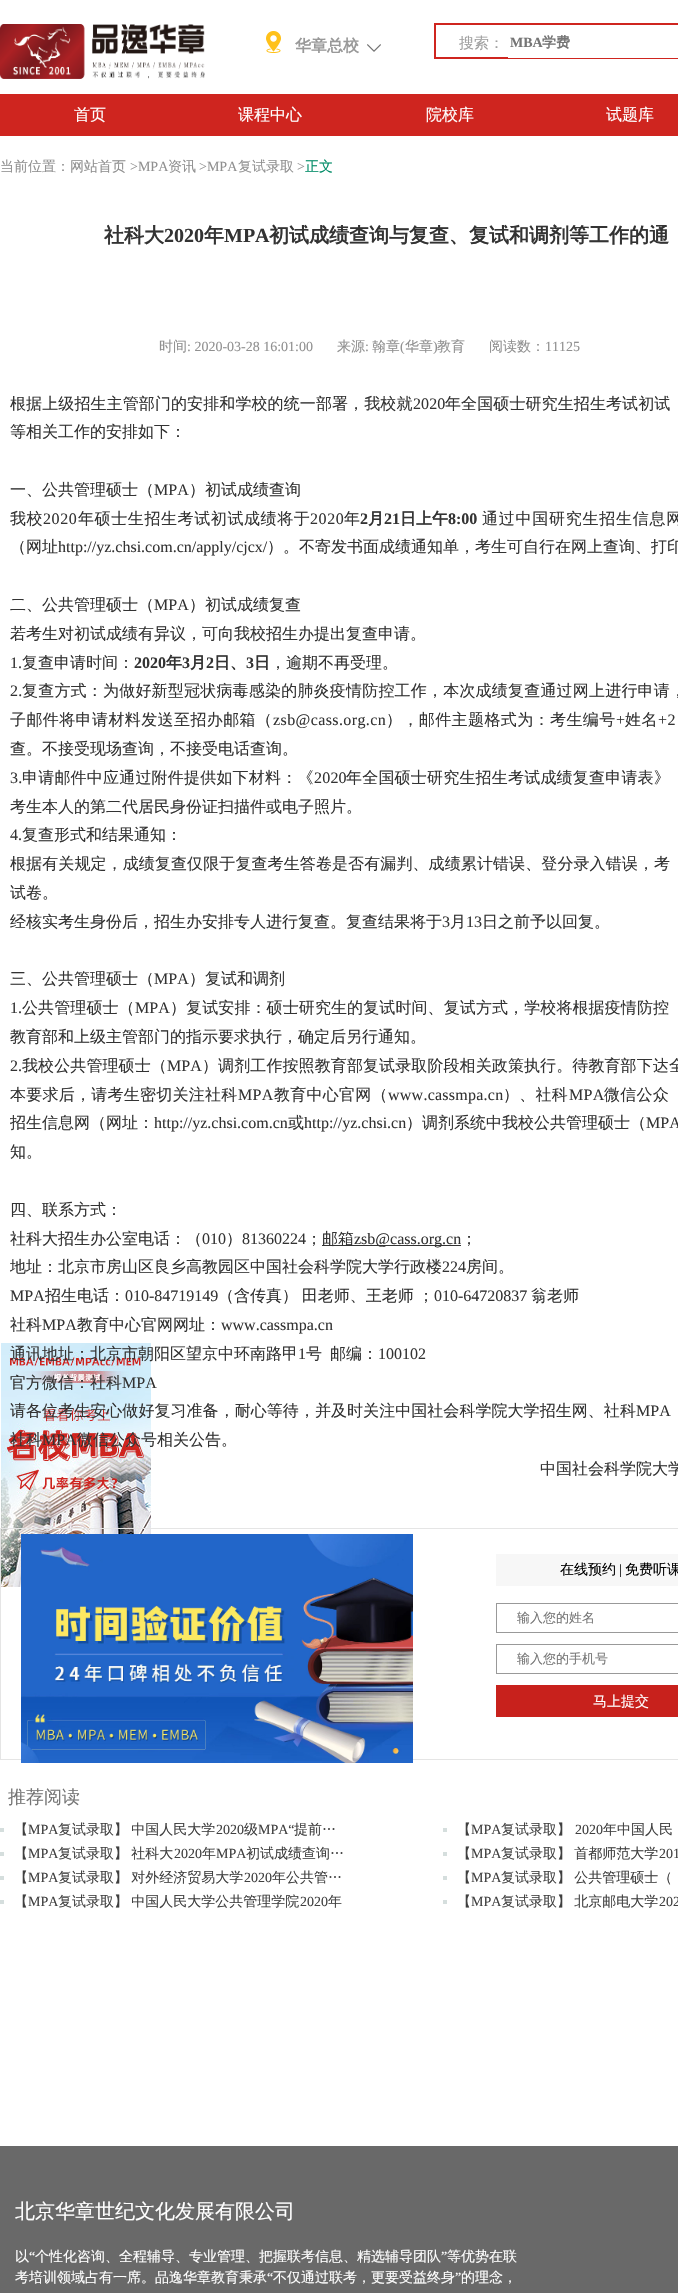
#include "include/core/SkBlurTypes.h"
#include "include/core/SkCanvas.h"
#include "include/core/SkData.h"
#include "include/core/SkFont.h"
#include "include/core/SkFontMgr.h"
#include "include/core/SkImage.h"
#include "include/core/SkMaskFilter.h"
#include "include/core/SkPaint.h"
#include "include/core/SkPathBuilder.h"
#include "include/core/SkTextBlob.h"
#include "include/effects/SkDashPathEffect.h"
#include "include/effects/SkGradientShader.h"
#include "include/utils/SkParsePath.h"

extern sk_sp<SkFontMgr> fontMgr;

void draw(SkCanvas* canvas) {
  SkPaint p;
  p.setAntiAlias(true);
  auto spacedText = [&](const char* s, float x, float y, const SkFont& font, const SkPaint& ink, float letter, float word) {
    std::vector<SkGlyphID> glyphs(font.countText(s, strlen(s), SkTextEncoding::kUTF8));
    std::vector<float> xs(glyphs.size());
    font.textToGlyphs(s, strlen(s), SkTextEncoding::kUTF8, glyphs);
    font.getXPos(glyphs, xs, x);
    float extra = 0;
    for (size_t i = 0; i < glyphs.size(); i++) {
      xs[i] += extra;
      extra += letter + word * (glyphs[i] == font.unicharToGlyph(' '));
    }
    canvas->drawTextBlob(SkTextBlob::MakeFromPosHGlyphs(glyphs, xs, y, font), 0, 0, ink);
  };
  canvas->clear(SK_ColorWHITE);
  canvas->drawImageRect(SkImages::DeferredFromEncodedData(SkData::MakeFromFileName("images/1.png")), SkRect::MakeLTRB(0, 24, 205, 79), SkSamplingOptions());
  canvas->drawImageRect(SkImages::DeferredFromEncodedData(SkData::MakeFromFileName("images/2.png")), SkRect::MakeLTRB(266, 31, 281, 53), SkSamplingOptions());
  canvas->drawImageRect(SkImages::DeferredFromEncodedData(SkData::MakeFromFileName("images/3.png")), SkRect::MakeLTRB(367, 44, 381, 52), SkSamplingOptions());
  p.setStyle(SkPaint::kStroke_Style);
  p.setStrokeWidth(2);
  p.setColor(SkColorSetRGB(207, 37, 31));
  canvas->drawRect(SkRect::MakeLTRB(435, 24, 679, 58), p);
  p.setStyle(SkPaint::kFill_Style);
  p.setColor(SK_ColorWHITE);
  canvas->drawRect(SkRect::MakeLTRB(508, 57, 678, 58), p);
  p.setColor(SkColorSetRGB(207, 37, 31));
  canvas->drawRect(SkRect::MakeLTRB(0, 94, 678, 136), p);
  p.setColor(SkColorSetRGB(51, 51, 51));
  canvas->drawRect(SkRect::MakeLTRB(322, 1245, 461, 1246), p);
  canvas->drawImageRect(SkImages::DeferredFromEncodedData(SkData::MakeFromFileName("images/5.png")), SkRect::MakeLTRB(1, 1343, 151, 1587), SkSamplingOptions());
  p.setStyle(SkPaint::kStroke_Style);
  p.setStrokeWidth(1);
  p.setColor(SkColorSetRGB(229, 229, 229));
  canvas->drawRect(SkRect::MakeLTRB(0.5f, 1528.5f, 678.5f, 1759.5f), p);
  canvas->drawImageRect(SkImages::DeferredFromEncodedData(SkData::MakeFromFileName("images/4.png")), SkRect::MakeLTRB(21, 1534, 413, 1763), SkSamplingOptions());
  p.setStyle(SkPaint::kFill_Style);
  p.setColor(SkColorSetRGB(247, 247, 247));
  canvas->drawRect(SkRect::MakeLTRB(496, 1554, 678, 1586), p);
  p.setStyle(SkPaint::kStroke_Style);
  p.setColor(SkColorSetRGB(153, 153, 153));
  canvas->drawRect(SkRect::MakeLTRB(496.5f, 1603.5f, 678.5f, 1632.5f), p);
  canvas->drawRect(SkRect::MakeLTRB(496.5f, 1644.5f, 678.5f, 1673.5f), p);
  p.setStyle(SkPaint::kFill_Style);
  p.setColor(SkColorSetRGB(200, 33, 28));
  canvas->drawRect(SkRect::MakeLTRB(496, 1685, 678, 1717), p);
  p.setColor(SkColorSetRGB(213, 222, 221));
  canvas->drawRect(SkRect::MakeLTRB(0, 1828, 4, 1832), p);
  canvas->drawRect(SkRect::MakeLTRB(443, 1828, 447, 1832), p);
  canvas->drawRect(SkRect::MakeLTRB(0, 1852, 4, 1856), p);
  canvas->drawRect(SkRect::MakeLTRB(443, 1852, 447, 1856), p);
  canvas->drawRect(SkRect::MakeLTRB(0, 1876, 4, 1880), p);
  canvas->drawRect(SkRect::MakeLTRB(443, 1876, 447, 1880), p);
  canvas->drawRect(SkRect::MakeLTRB(0, 1900, 4, 1904), p);
  canvas->drawRect(SkRect::MakeLTRB(443, 1900, 447, 1904), p);
  p.setColor(SkColorSetRGB(105, 105, 105));
  canvas->drawRect(SkRect::MakeLTRB(0, 2146, 678, 2293), p);
  SkFont font1(fontMgr->matchFamilyStyle("WenQuanYi Zen Hei", SkFontStyle::Bold()), 16);
  font1.setSubpixel(true);
  p.setColor(SkColorSetRGB(153, 153, 153));
  canvas->drawString("华章总校", 295, 51, font1, p);
  SkFont font2(fontMgr->matchFamilyStyle("WenQuanYi Zen Hei", SkFontStyle(500, SkFontStyle::kNormal_Width, SkFontStyle::kUpright_Slant)), 15);
  font2.setSubpixel(true);
  p.setColor(SkColorSetRGB(159, 159, 159));
  canvas->drawString("搜索：", 459, 48, font2, p);
  SkFont font3(fontMgr->matchFamilyStyle("Liberation Serif", SkFontStyle::Bold()), 14);
  font3.setSubpixel(true);
  p.setColor(SkColorSetRGB(117, 117, 117));
  canvas->drawString("MBA", 510, 47, font3, p);
  SkFont font4(fontMgr->matchFamilyStyle("WenQuanYi Zen Hei", SkFontStyle::Bold()), 14);
  font4.setSubpixel(true);
  canvas->drawString("学费", 542, 47, font4, p);
  SkFont font5(fontMgr->matchFamilyStyle("WenQuanYi Zen Hei", SkFontStyle(500, SkFontStyle::kNormal_Width, SkFontStyle::kUpright_Slant)), 16);
  font5.setSubpixel(true);
  p.setColor(SK_ColorWHITE);
  canvas->drawString("首页", 74, 120, font5, p);
  canvas->drawString("课程中心", 238, 120, font5, p);
  canvas->drawString("院校库", 426, 120, font5, p);
  canvas->drawString("试题库", 606, 120, font5, p);
  SkFont font6(fontMgr->matchFamilyStyle("WenQuanYi Zen Hei", SkFontStyle(500, SkFontStyle::kNormal_Width, SkFontStyle::kUpright_Slant)), 14);
  font6.setSubpixel(true);
  p.setColor(SkColorSetRGB(144, 144, 144));
  canvas->drawString("当前位置：网站首页", 0, 171, font6, p);
  SkFont font7(fontMgr->matchFamilyStyle("Liberation Serif", SkFontStyle::Normal()), 14);
  font7.setSubpixel(true);
  canvas->drawString(">MPA", 130, 171, font7, p);
  canvas->drawString("资讯", 168, 171, font6, p);
  canvas->drawString(">MPA", 199, 171, font7, p);
  canvas->drawString("复试录取", 238, 171, font6, p);
  canvas->drawString(">", 297, 171, font7, p);
  p.setColor(SkColorSetRGB(0, 139, 102));
  canvas->drawString("正文", 305, 171, font6, p);
  SkFont font8(fontMgr->matchFamilyStyle("WenQuanYi Zen Hei", SkFontStyle::Bold()), 20);
  font8.setSubpixel(true);
  p.setColor(SkColorSetRGB(51, 51, 51));
  canvas->drawString("社科大", 104, 242, font8, p);
  SkFont font9(fontMgr->matchFamilyStyle("Liberation Serif", SkFontStyle::Bold()), 20);
  font9.setSubpixel(true);
  canvas->drawString("2020", 164, 242, font9, p);
  canvas->drawString("年", 204, 242, font8, p);
  canvas->drawString("MPA", 224, 242, font9, p);
  canvas->drawString("初试成绩查询与复查、复试和调剂等工作的通", 269, 242, font8, p);
  p.setColor(SkColorSetRGB(144, 144, 144));
  canvas->drawString("时间", 159, 351, font6, p);
  canvas->drawString(": 2020-03-28 16:01:00", 187, 351, font7, p);
  canvas->drawString("来源", 337, 351, font6, p);
  canvas->drawString(":", 365, 351, font7, p);
  canvas->drawString("翰章", 372, 351, font6, p);
  canvas->drawString("(", 400, 351, font7, p);
  canvas->drawString("华章", 405, 351, font6, p);
  canvas->drawString(")", 433, 351, font7, p);
  canvas->drawString("教育", 437, 351, font6, p);
  canvas->drawString("阅读数：", 489, 351, font6, p);
  canvas->drawString("11125", 545, 351, font7, p);
  p.setColor(SkColorSetRGB(51, 51, 51));
  spacedText("根据上级招生主管部门的安排和学校的统一部署，我校就", 10, 409, font5, p, 0.1f, 0);
  SkFont font10(fontMgr->matchFamilyStyle("Liberation Serif", SkFontStyle::Normal()), 16);
  font10.setSubpixel(true);
  spacedText("2020", 413, 409, font10, p, 0.1f, 0);
  spacedText("年全国硕士研究生招生考试初试", 445, 409, font5, p, 0.1f, 0);
  canvas->drawString("等相关工作的安排如下：", 10, 437, font5, p);
  canvas->drawString("一、公共管理硕士（", 10, 495, font5, p);
  canvas->drawString("MPA", 154, 495, font10, p);
  canvas->drawString("）初试成绩查询", 189, 495, font5, p);
  spacedText("我校", 10, 524, font5, p, 0.6f, 0);
  spacedText("2020", 43, 524, font10, p, 0.6f, 0);
  spacedText("年硕士生招生考试初试成绩将于", 78, 524, font5, p, 0.6f, 0);
  spacedText("2020", 310, 524, font10, p, 0.6f, 0);
  spacedText("年", 344, 524, font5, p, 0.6f, 0);
  SkFont font11(fontMgr->matchFamilyStyle("Liberation Serif", SkFontStyle::Bold()), 16);
  font11.setSubpixel(true);
  canvas->drawString("2", 360, 524, font11, p);
  canvas->drawString("月", 368, 524, font1, p);
  canvas->drawString("21", 384, 524, font11, p);
  canvas->drawString("日上午", 400, 524, font1, p);
  canvas->drawString("8:00", 448, 524, font11, p);
  spacedText("通过中国研究生招生信息网", 482, 524, font5, p, 0.75f, 0);
  canvas->drawString("（网址", 10, 552, font5, p);
  canvas->drawString("http://yz.chsi.com.cn/apply/cjcx/", 58, 552, font10, p);
  canvas->drawString("）。不寄发书面成绩通知单，考生可自行在网上查询、打印", 267, 552, font5, p);
  canvas->drawString("二、公共管理硕士（", 10, 610, font5, p);
  canvas->drawString("MPA", 154, 610, font10, p);
  canvas->drawString("）初试成绩复查", 189, 610, font5, p);
  canvas->drawString("若考生对初试成绩有异议，可向我校招生办提出复查申请。", 10, 639, font5, p);
  canvas->drawString("1.", 10, 668, font10, p);
  canvas->drawString("复查申请时间：", 22, 668, font5, p);
  canvas->drawString("2020", 134, 668, font11, p);
  canvas->drawString("年", 166, 668, font1, p);
  canvas->drawString("3", 182, 668, font11, p);
  canvas->drawString("月", 190, 668, font1, p);
  canvas->drawString("2", 206, 668, font11, p);
  canvas->drawString("日、", 214, 668, font1, p);
  canvas->drawString("3", 246, 668, font11, p);
  canvas->drawString("日", 254, 668, font1, p);
  canvas->drawString("，逾期不再受理。", 270, 668, font5, p);
  spacedText("2.", 10, 696, font10, p, 0.2f, 0);
  spacedText("复查方式：为做好新型冠状病毒感染的肺炎疫情防控工作，本次成绩复查通过网上进行申请，", 22, 696, font5, p, 0.2f, 0);
  spacedText("子邮件将申请材料发送至招办邮箱（", 10, 725, font5, p, 0.4f, 0);
  spacedText("zsb@cass.org.cn", 273, 725, font10, p, 0.4f, 0);
  spacedText("），邮件主题格式为：考生编号", 386, 725, font5, p, 0.4f, 0);
  spacedText("+", 616, 725, font10, p, 0.4f, 0);
  spacedText("姓名", 625, 725, font5, p, 0.4f, 0);
  spacedText("+2", 658, 725, font10, p, 0.4f, 0);
  canvas->drawString("查。不接受现场查询，不接受电话查询。", 10, 754, font5, p);
  spacedText("3.", 10, 783, font10, p, 0.2f, 0);
  spacedText("申请邮件中应通过附件提供如下材料：《", 22, 783, font5, p, 0.2f, 0);
  spacedText("2020", 314, 783, font10, p, 0.2f, 0);
  spacedText("年全国硕士研究生招生考试成绩复查申请表》", 346, 783, font5, p, 0.2f, 0);
  canvas->drawString("考生本人的第二代居民身份证扫描件或电子照片。", 10, 812, font5, p);
  canvas->drawString("4.", 10, 840, font10, p);
  canvas->drawString("复查形式和结果通知：", 22, 840, font5, p);
  spacedText("根据有关规定，成绩复查仅限于复查考生答卷是否有漏判、成绩累计错误、登分录入错误，考", 10, 869, font5, p, 0.1f, 0);
  canvas->drawString("试卷。", 10, 898, font5, p);
  canvas->drawString("经核实考生身份后，招生办安排专人进行复查。复查结果将于", 10, 927, font5, p);
  canvas->drawString("3", 442, 927, font10, p);
  canvas->drawString("月", 450, 927, font5, p);
  canvas->drawString("13", 466, 927, font10, p);
  canvas->drawString("日之前予以回复。", 482, 927, font5, p);
  canvas->drawString("三、公共管理硕士（", 10, 984, font5, p);
  canvas->drawString("MPA", 154, 984, font10, p);
  canvas->drawString("）复试和调剂", 189, 984, font5, p);
  spacedText("1.", 10, 1013, font10, p, 0.1f, 0);
  spacedText("公共管理硕士（", 22, 1013, font5, p, 0.1f, 0);
  spacedText("MPA", 135, 1013, font10, p, 0.1f, 0);
  spacedText("）复试安排：硕士研究生的复试时间、复试方式，学校将根据疫情防控", 170, 1013, font5, p, 0.1f, 0);
  canvas->drawString("教育部和上级主管部门的指示要求执行，确定后另行通知。", 10, 1042, font5, p);
  spacedText("2.", 10, 1071, font10, p, 0.1f, 0);
  spacedText("我校公共管理硕士（", 22, 1071, font5, p, 0.1f, 0);
  spacedText("MPA", 167, 1071, font10, p, 0.1f, 0);
  spacedText("）调剂工作按照教育部复试录取阶段相关政策执行。待教育部下达全", 202, 1071, font5, p, 0.1f, 0);
  spacedText("本要求后，请考生密切关注社科", 10, 1100, font5, p, 0.25f, 0);
  spacedText("MPA", 238, 1100, font10, p, 0.25f, 0);
  spacedText("教育中心官网（", 274, 1100, font5, p, 0.25f, 0);
  spacedText("www.cassmpa.cn", 388, 1100, font10, p, 0.25f, 0);
  spacedText("）、社科", 503, 1100, font5, p, 0.25f, 0);
  spacedText("MPA", 569, 1100, font10, p, 0.25f, 0);
  spacedText("微信公众", 604, 1100, font5, p, 0.25f, 0);
  canvas->drawString("招生信息网（网址：", 10, 1128, font5, p);
  canvas->drawString("http://yz.chsi.com.cn", 154, 1128, font10, p);
  canvas->drawString("或", 288, 1128, font5, p);
  canvas->drawString("http://yz.chsi.cn", 304, 1128, font10, p);
  canvas->drawString("）调剂系统中我校公共管理硕士（", 406, 1128, font5, p);
  canvas->drawString("MPA", 646, 1128, font10, p);
  canvas->drawString("知。", 10, 1157, font5, p);
  canvas->drawString("四、联系方式：", 10, 1215, font5, p);
  canvas->drawString("社科大招生办公室电话：（", 10, 1244, font5, p);
  canvas->drawString("010", 202, 1244, font10, p);
  canvas->drawString("）", 226, 1244, font5, p);
  canvas->drawString("81360224", 242, 1244, font10, p);
  canvas->drawString("；", 306, 1244, font5, p);
  canvas->drawString("邮箱", 322, 1244, font5, p);
  canvas->drawString("zsb@cass.org.cn", 354, 1244, font10, p);
  canvas->drawString("；", 461, 1244, font5, p);
  canvas->drawString("地址：北京市房山区良乡高教园区中国社会科学院大学行政楼", 10, 1272, font5, p);
  canvas->drawString("224", 442, 1272, font10, p);
  canvas->drawString("房间。", 466, 1272, font5, p);
  canvas->drawString("MPA", 10, 1301, font10, p);
  canvas->drawString("招生电话：", 45, 1301, font5, p);
  canvas->drawString("010-84719149", 125, 1301, font10, p);
  spacedText("（含传真） 田老师、王老师", 218, 1301, font5, p, 0, -1);
  canvas->drawString("；", 418, 1301, font5, p);
  canvas->drawString("010-64720837", 434, 1301, font10, p);
  canvas->drawString("翁老师", 531, 1301, font5, p);
  canvas->drawString("社科", 10, 1330, font5, p);
  canvas->drawString("MPA", 42, 1330, font10, p);
  canvas->drawString("教育中心官网网址：", 77, 1330, font5, p);
  canvas->drawString("www.cassmpa.cn", 221, 1330, font10, p);
  canvas->drawString("通讯地址：北京市朝阳区望京中环南路甲", 10, 1359, font5, p);
  canvas->drawString("1", 298, 1359, font10, p);
  canvas->drawString("号", 306, 1359, font5, p);
  canvas->drawString("邮编：", 330, 1359, font5, p);
  canvas->drawString("100102", 378, 1359, font10, p);
  canvas->drawString("官方微信：社科", 10, 1388, font5, p);
  canvas->drawString("MPA", 122, 1388, font10, p);
  spacedText("请各位考生安心做好复习准备，耐心等待，并及时关注中国社会科学院大学招生网、社科", 10, 1416, font5, p, 0.05f, 0);
  spacedText("MPA", 636, 1416, font10, p, 0.05f, 0);
  canvas->drawString("社科", 10, 1445, font5, p);
  canvas->drawString("MPA", 42, 1445, font10, p);
  canvas->drawString("微信公众号相关公告。", 77, 1445, font5, p);
  canvas->drawString("中国社会科学院大学", 540, 1474, font5, p);
  p.setColor(SK_ColorBLACK);
  canvas->drawString("在线预约", 560, 1574, font6, p);
  canvas->drawString("|", 619, 1574, font7, p);
  canvas->drawString("免费听课", 625, 1574, font6, p);
  SkFont font12(fontMgr->matchFamilyStyle("WenQuanYi Zen Hei", SkFontStyle(500, SkFontStyle::kNormal_Width, SkFontStyle::kUpright_Slant)), 13);
  font12.setSubpixel(true);
  p.setColor(SkColorSetRGB(117, 117, 117));
  canvas->drawString("输入您的姓名", 517, 1622, font12, p);
  canvas->drawString("输入您的手机号", 517, 1663, font12, p);
  p.setColor(SK_ColorWHITE);
  canvas->drawString("马上提交", 593, 1706, font6, p);
  SkFont font13(fontMgr->matchFamilyStyle("WenQuanYi Zen Hei", SkFontStyle(500, SkFontStyle::kNormal_Width, SkFontStyle::kUpright_Slant)), 18);
  font13.setSubpixel(true);
  p.setColor(SkColorSetRGB(117, 117, 117));
  canvas->drawString("推荐阅读", 8, 1803, font13, p);
  p.setColor(SkColorSetRGB(64, 64, 64));
  canvas->drawString("【", 14, 1834, font6, p);
  canvas->drawString("MPA", 28, 1834, font7, p);
  spacedText("复试录取】 中国人民大学", 58, 1834, font6, p, 0, -1);
  canvas->drawString("2020", 216, 1834, font7, p);
  canvas->drawString("级", 244, 1834, font6, p);
  canvas->drawString("MPA“", 258, 1834, font7, p);
  canvas->drawString("提前…", 294, 1834, font6, p);
  canvas->drawString("【", 457, 1834, font6, p);
  canvas->drawString("MPA", 471, 1834, font7, p);
  canvas->drawString("复试录取】", 501, 1834, font6, p);
  canvas->drawString("2020", 575, 1834, font7, p);
  canvas->drawString("年中国人民", 603, 1834, font6, p);
  canvas->drawString("【", 14, 1858, font6, p);
  canvas->drawString("MPA", 28, 1858, font7, p);
  spacedText("复试录取】 社科大", 58, 1858, font6, p, 0, -1);
  canvas->drawString("2020", 174, 1858, font7, p);
  canvas->drawString("年", 202, 1858, font6, p);
  canvas->drawString("MPA", 216, 1858, font7, p);
  canvas->drawString("初试成绩查询…", 246, 1858, font6, p);
  canvas->drawString("【", 457, 1858, font6, p);
  canvas->drawString("MPA", 471, 1858, font7, p);
  spacedText("复试录取】 首都师范大学", 501, 1858, font6, p, 0, -1);
  canvas->drawString("201", 659, 1858, font7, p);
  canvas->drawString("【", 14, 1882, font6, p);
  canvas->drawString("MPA", 28, 1882, font7, p);
  spacedText("复试录取】 对外经济贸易大学", 58, 1882, font6, p, 0, -1);
  canvas->drawString("2020", 244, 1882, font7, p);
  canvas->drawString("年公共管…", 272, 1882, font6, p);
  canvas->drawString("【", 457, 1882, font6, p);
  canvas->drawString("MPA", 471, 1882, font7, p);
  spacedText("复试录取】 公共管理硕士（", 501, 1882, font6, p, 0, -1);
  canvas->drawString("【", 14, 1906, font6, p);
  canvas->drawString("MPA", 28, 1906, font7, p);
  spacedText("复试录取】 中国人民大学公共管理学院", 58, 1906, font6, p, 0, -1);
  canvas->drawString("2020", 300, 1906, font7, p);
  canvas->drawString("年", 328, 1906, font6, p);
  canvas->drawString("【", 457, 1906, font6, p);
  canvas->drawString("MPA", 471, 1906, font7, p);
  spacedText("复试录取】 北京邮电大学", 501, 1906, font6, p, 0, -1);
  canvas->drawString("202", 659, 1906, font7, p);
  SkFont font14(fontMgr->matchFamilyStyle("WenQuanYi Zen Hei", SkFontStyle(500, SkFontStyle::kNormal_Width, SkFontStyle::kUpright_Slant)), 20);
  font14.setSubpixel(true);
  p.setColor(SK_ColorWHITE);
  canvas->drawString("北京华章世纪文化发展有限公司", 15, 2218, font14, p);
  canvas->drawString("以", 15, 2261, font6, p);
  canvas->drawString("“", 29, 2261, font7, p);
  canvas->drawString("个性化咨询、全程辅导、专业管理、把握联考信息、精选辅导团队", 35, 2261, font6, p);
  canvas->drawString("”", 441, 2261, font7, p);
  canvas->drawString("等优势在联", 447, 2261, font6, p);
  canvas->drawString("考培训领域占有一席。品逸华章教育秉承", 15, 2282, font6, p);
  canvas->drawString("“", 267, 2282, font7, p);
  canvas->drawString("不仅通过联考，更要受益终身", 273, 2282, font6, p);
  canvas->drawString("”", 455, 2282, font7, p);
  canvas->drawString("的理念，", 461, 2282, font6, p);
}
